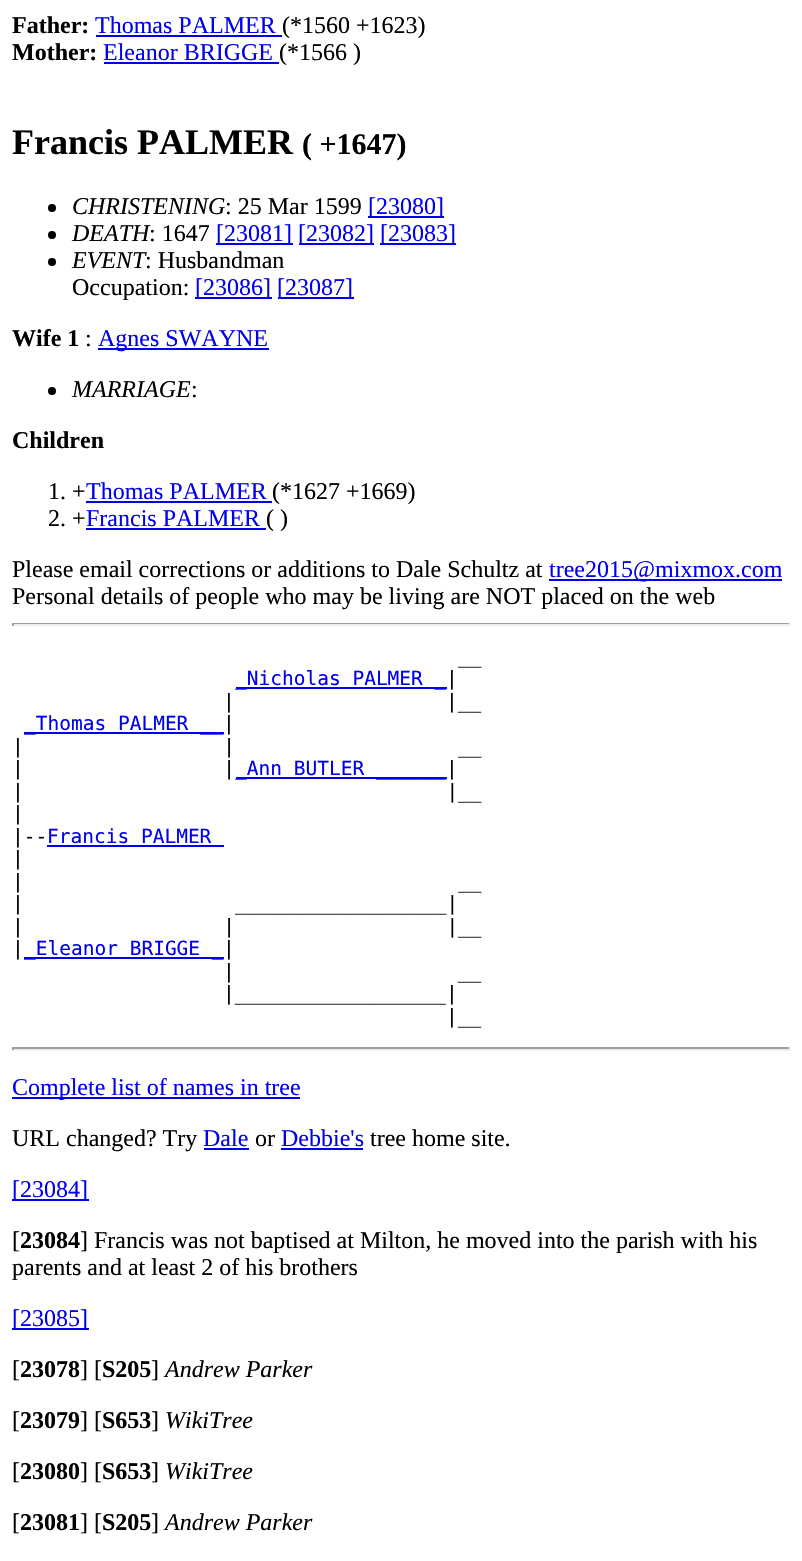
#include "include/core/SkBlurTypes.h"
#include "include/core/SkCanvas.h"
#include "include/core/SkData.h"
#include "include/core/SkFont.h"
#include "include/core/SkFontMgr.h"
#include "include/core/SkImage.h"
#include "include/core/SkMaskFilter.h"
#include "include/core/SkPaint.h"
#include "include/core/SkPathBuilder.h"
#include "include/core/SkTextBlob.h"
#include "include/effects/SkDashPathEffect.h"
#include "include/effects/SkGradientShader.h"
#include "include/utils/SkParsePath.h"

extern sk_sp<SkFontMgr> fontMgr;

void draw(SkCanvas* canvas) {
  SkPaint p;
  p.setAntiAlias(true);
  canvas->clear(SK_ColorWHITE);
  p.setColor(SkColorSetRGB(0, 0, 238));
  canvas->drawRect(SkRect::MakeLTRB(96, 35, 282, 37), p);
  canvas->drawRect(SkRect::MakeLTRB(104, 62, 279, 64), p);
  p.setColor(SK_ColorBLACK);
  canvas->drawCircle(52, 208, 4, p);
  p.setColor(SkColorSetRGB(0, 0, 238));
  canvas->drawRect(SkRect::MakeLTRB(368, 216, 444, 218), p);
  p.setColor(SK_ColorBLACK);
  canvas->drawCircle(52, 235, 4, p);
  p.setColor(SkColorSetRGB(0, 0, 238));
  canvas->drawRect(SkRect::MakeLTRB(216, 243, 293, 245), p);
  canvas->drawRect(SkRect::MakeLTRB(299, 243, 374, 245), p);
  canvas->drawRect(SkRect::MakeLTRB(380, 243, 456, 245), p);
  p.setColor(SK_ColorBLACK);
  canvas->drawCircle(52, 262, 4, p);
  p.setColor(SkColorSetRGB(0, 0, 238));
  canvas->drawRect(SkRect::MakeLTRB(195, 297, 272, 299), p);
  canvas->drawRect(SkRect::MakeLTRB(278, 297, 354, 299), p);
  canvas->drawRect(SkRect::MakeLTRB(98, 348, 269, 350), p);
  p.setColor(SK_ColorBLACK);
  canvas->drawCircle(52, 391, 4, p);
  p.setColor(SkColorSetRGB(0, 0, 238));
  canvas->drawRect(SkRect::MakeLTRB(86, 501, 272, 503), p);
  canvas->drawRect(SkRect::MakeLTRB(86, 528, 266, 530), p);
  canvas->drawRect(SkRect::MakeLTRB(549, 579, 782, 581), p);
  p.setColor(SkColorSetRGB(159, 159, 159));
  canvas->drawRect(SkRect::MakeLTRB(12, 623, 791, 624), p);
  p.setColor(SkColorSetRGB(238, 238, 238));
  canvas->drawRect(SkRect::MakeLTRB(789, 623, 791, 626), p);
  canvas->drawRect(SkRect::MakeLTRB(12, 624, 791, 626), p);
  p.setColor(SkColorSetRGB(159, 159, 159));
  canvas->drawRect(SkRect::MakeLTRB(12, 623, 14, 626), p);
  p.setColor(SkColorSetRGB(0, 0, 238));
  canvas->drawRect(SkRect::MakeLTRB(236, 687, 447, 689), p);
  canvas->drawRect(SkRect::MakeLTRB(24, 732, 224, 734), p);
  canvas->drawRect(SkRect::MakeLTRB(236, 777, 447, 779), p);
  canvas->drawRect(SkRect::MakeLTRB(47, 845, 224, 847), p);
  canvas->drawRect(SkRect::MakeLTRB(24, 957, 224, 959), p);
  p.setColor(SkColorSetRGB(159, 159, 159));
  canvas->drawRect(SkRect::MakeLTRB(12, 1047, 791, 1049), p);
  p.setColor(SkColorSetRGB(238, 238, 238));
  canvas->drawRect(SkRect::MakeLTRB(789, 1047, 791, 1050), p);
  canvas->drawRect(SkRect::MakeLTRB(12, 1049, 791, 1051), p);
  p.setColor(SkColorSetRGB(159, 159, 159));
  canvas->drawRect(SkRect::MakeLTRB(12, 1047, 14, 1050), p);
  p.setColor(SkColorSetRGB(0, 0, 238));
  canvas->drawRect(SkRect::MakeLTRB(12, 1097, 300, 1099), p);
  canvas->drawRect(SkRect::MakeLTRB(204, 1148, 249, 1150), p);
  canvas->drawRect(SkRect::MakeLTRB(281, 1148, 363, 1150), p);
  canvas->drawRect(SkRect::MakeLTRB(12, 1199, 89, 1201), p);
  canvas->drawRect(SkRect::MakeLTRB(12, 1328, 89, 1330), p);
  SkFont font1(fontMgr->matchFamilyStyle("Liberation Serif", SkFontStyle::Bold()), 24);
  font1.setSubpixel(true);
  p.setColor(SK_ColorBLACK);
  canvas->drawString("Father:", 12, 33, font1, p);
  SkFont font2(fontMgr->matchFamilyStyle("Liberation Serif", SkFontStyle::Normal()), 24);
  font2.setSubpixel(true);
  p.setColor(SkColorSetRGB(0, 0, 238));
  canvas->drawString("Thomas PALMER", 95, 33, font2, p);
  p.setColor(SK_ColorBLACK);
  canvas->drawString("(*1560 +1623)", 282, 33, font2, p);
  canvas->drawString("Mother:", 12, 60, font1, p);
  p.setColor(SkColorSetRGB(0, 0, 238));
  canvas->drawString("Eleanor BRIGGE", 103, 60, font2, p);
  p.setColor(SK_ColorBLACK);
  canvas->drawString("(*1566 )", 279, 60, font2, p);
  SkFont font3(fontMgr->matchFamilyStyle("Liberation Serif", SkFontStyle::Bold()), 36);
  font3.setSubpixel(true);
  canvas->drawString("Francis PALMER", 12, 154, font3, p);
  SkFont font4(fontMgr->matchFamilyStyle("Liberation Serif", SkFontStyle::Bold()), 30);
  font4.setSubpixel(true);
  canvas->drawString("( +1647)", 302, 154, font4, p);
  SkFont font5(fontMgr->matchFamilyStyle("Liberation Serif", SkFontStyle::Italic()), 24);
  font5.setSubpixel(true);
  canvas->drawString("CHRISTENING", 72, 214, font5, p);
  canvas->drawString(": 25 Mar 1599", 225, 214, font2, p);
  p.setColor(SkColorSetRGB(0, 0, 238));
  canvas->drawString("[23080]", 368, 214, font2, p);
  p.setColor(SK_ColorBLACK);
  canvas->drawString("DEATH", 72, 241, font5, p);
  canvas->drawString(": 1647", 149, 241, font2, p);
  p.setColor(SkColorSetRGB(0, 0, 238));
  canvas->drawString("[23081]", 216, 241, font2, p);
  canvas->drawString("[23082]", 298, 241, font2, p);
  canvas->drawString("[23083]", 380, 241, font2, p);
  p.setColor(SK_ColorBLACK);
  canvas->drawString("EVENT", 72, 268, font5, p);
  canvas->drawString(": Husbandman", 145, 268, font2, p);
  canvas->drawString("Occupation:", 72, 295, font2, p);
  p.setColor(SkColorSetRGB(0, 0, 238));
  canvas->drawString("[23086]", 195, 295, font2, p);
  canvas->drawString("[23087]", 277, 295, font2, p);
  p.setColor(SK_ColorBLACK);
  canvas->drawString("Wife 1", 12, 346, font1, p);
  canvas->drawString(":", 85, 346, font2, p);
  p.setColor(SkColorSetRGB(0, 0, 238));
  canvas->drawString("Agnes SWAYNE", 98, 346, font2, p);
  p.setColor(SK_ColorBLACK);
  canvas->drawString("MARRIAGE", 72, 397, font5, p);
  canvas->drawString(":", 191, 397, font2, p);
  canvas->drawString("Children", 12, 448, font1, p);
  canvas->drawString("1. +", 48, 499, font2, p);
  p.setColor(SkColorSetRGB(0, 0, 238));
  canvas->drawString("Thomas PALMER", 86, 499, font2, p);
  p.setColor(SK_ColorBLACK);
  canvas->drawString("(*1627 +1669)", 272, 499, font2, p);
  canvas->drawString("2. +", 48, 526, font2, p);
  p.setColor(SkColorSetRGB(0, 0, 238));
  canvas->drawString("Francis PALMER", 86, 526, font2, p);
  p.setColor(SK_ColorBLACK);
  canvas->drawString("( )", 266, 526, font2, p);
  canvas->drawString("Please email corrections or additions to Dale Schultz at", 12, 577, font2, p);
  p.setColor(SkColorSetRGB(0, 0, 238));
  canvas->drawString("tree2015@mixmox.com", 549, 577, font2, p);
  p.setColor(SK_ColorBLACK);
  canvas->drawString("Personal details of people who may be living are NOT placed on the web", 12, 604, font2, p);
  SkFont font6(fontMgr->matchFamilyStyle("DejaVu Sans Mono", SkFontStyle::Normal()), 19.5f);
  font6.setSubpixel(true);
  canvas->drawString("__", 458, 663, font6, p);
  p.setColor(SkColorSetRGB(0, 0, 238));
  canvas->drawString("_Nicholas PALMER _", 235, 685, font6, p);
  p.setColor(SK_ColorBLACK);
  canvas->drawString("|", 446, 685, font6, p);
  canvas->drawString("|                  |__", 223, 708, font6, p);
  p.setColor(SkColorSetRGB(0, 0, 238));
  canvas->drawString("_Thomas PALMER __", 24, 730, font6, p);
  p.setColor(SK_ColorBLACK);
  canvas->drawString("|", 223, 730, font6, p);
  canvas->drawString("|                 |                   __", 12, 753, font6, p);
  canvas->drawString("|                 |", 12, 775, font6, p);
  p.setColor(SkColorSetRGB(0, 0, 238));
  canvas->drawString("_Ann BUTLER ______", 235, 775, font6, p);
  p.setColor(SK_ColorBLACK);
  canvas->drawString("|", 446, 775, font6, p);
  canvas->drawString("|                                    |__", 12, 798, font6, p);
  canvas->drawString("|", 12, 820, font6, p);
  canvas->drawString("|--", 12, 843, font6, p);
  p.setColor(SkColorSetRGB(0, 0, 238));
  canvas->drawString("Francis PALMER", 47, 843, font6, p);
  p.setColor(SK_ColorBLACK);
  canvas->drawString("|", 12, 865, font6, p);
  canvas->drawString("|                                     __", 12, 888, font6, p);
  canvas->drawString("|                  __________________|", 12, 910, font6, p);
  canvas->drawString("|                 |                  |__", 12, 933, font6, p);
  canvas->drawString("|", 12, 955, font6, p);
  p.setColor(SkColorSetRGB(0, 0, 238));
  canvas->drawString("_Eleanor BRIGGE _", 24, 955, font6, p);
  p.setColor(SK_ColorBLACK);
  canvas->drawString("|", 223, 955, font6, p);
  canvas->drawString("|                   __", 223, 978, font6, p);
  canvas->drawString("|__________________|", 223, 1000, font6, p);
  canvas->drawString("|__", 446, 1023, font6, p);
  p.setColor(SkColorSetRGB(0, 0, 238));
  canvas->drawString("Complete list of names in tree", 12, 1095, font2, p);
  p.setColor(SK_ColorBLACK);
  canvas->drawString("URL changed? Try", 12, 1146, font2, p);
  p.setColor(SkColorSetRGB(0, 0, 238));
  canvas->drawString("Dale", 203, 1146, font2, p);
  p.setColor(SK_ColorBLACK);
  canvas->drawString("or", 255, 1146, font2, p);
  p.setColor(SkColorSetRGB(0, 0, 238));
  canvas->drawString("Debbie's", 281, 1146, font2, p);
  p.setColor(SK_ColorBLACK);
  canvas->drawString("tree home site.", 370, 1146, font2, p);
  p.setColor(SkColorSetRGB(0, 0, 238));
  canvas->drawString("[23084]", 12, 1197, font2, p);
  p.setColor(SK_ColorBLACK);
  canvas->drawString("[", 12, 1248, font2, p);
  canvas->drawString("23084", 20, 1248, font1, p);
  canvas->drawString("] Francis was not baptised at Milton, he moved into the parish with his", 80, 1248, font2, p);
  canvas->drawString("parents and at least 2 of his brothers", 12, 1275, font2, p);
  p.setColor(SkColorSetRGB(0, 0, 238));
  canvas->drawString("[23085]", 12, 1326, font2, p);
  p.setColor(SK_ColorBLACK);
  canvas->drawString("[", 12, 1377, font2, p);
  canvas->drawString("23078", 20, 1377, font1, p);
  canvas->drawString("] [", 80, 1377, font2, p);
  canvas->drawString("S205", 102, 1377, font1, p);
  canvas->drawString("]", 151, 1377, font2, p);
  canvas->drawString("Andrew Parker", 165, 1377, font5, p);
  canvas->drawString("[", 12, 1428, font2, p);
  canvas->drawString("23079", 20, 1428, font1, p);
  canvas->drawString("] [", 80, 1428, font2, p);
  canvas->drawString("S653", 102, 1428, font1, p);
  canvas->drawString("]", 151, 1428, font2, p);
  canvas->drawString("WikiTree", 165, 1428, font5, p);
  canvas->drawString("[", 12, 1479, font2, p);
  canvas->drawString("23080", 20, 1479, font1, p);
  canvas->drawString("] [", 80, 1479, font2, p);
  canvas->drawString("S653", 102, 1479, font1, p);
  canvas->drawString("]", 151, 1479, font2, p);
  canvas->drawString("WikiTree", 165, 1479, font5, p);
  canvas->drawString("[", 12, 1530, font2, p);
  canvas->drawString("23081", 20, 1530, font1, p);
  canvas->drawString("] [", 80, 1530, font2, p);
  canvas->drawString("S205", 102, 1530, font1, p);
  canvas->drawString("]", 151, 1530, font2, p);
  canvas->drawString("Andrew Parker", 165, 1530, font5, p);
}
